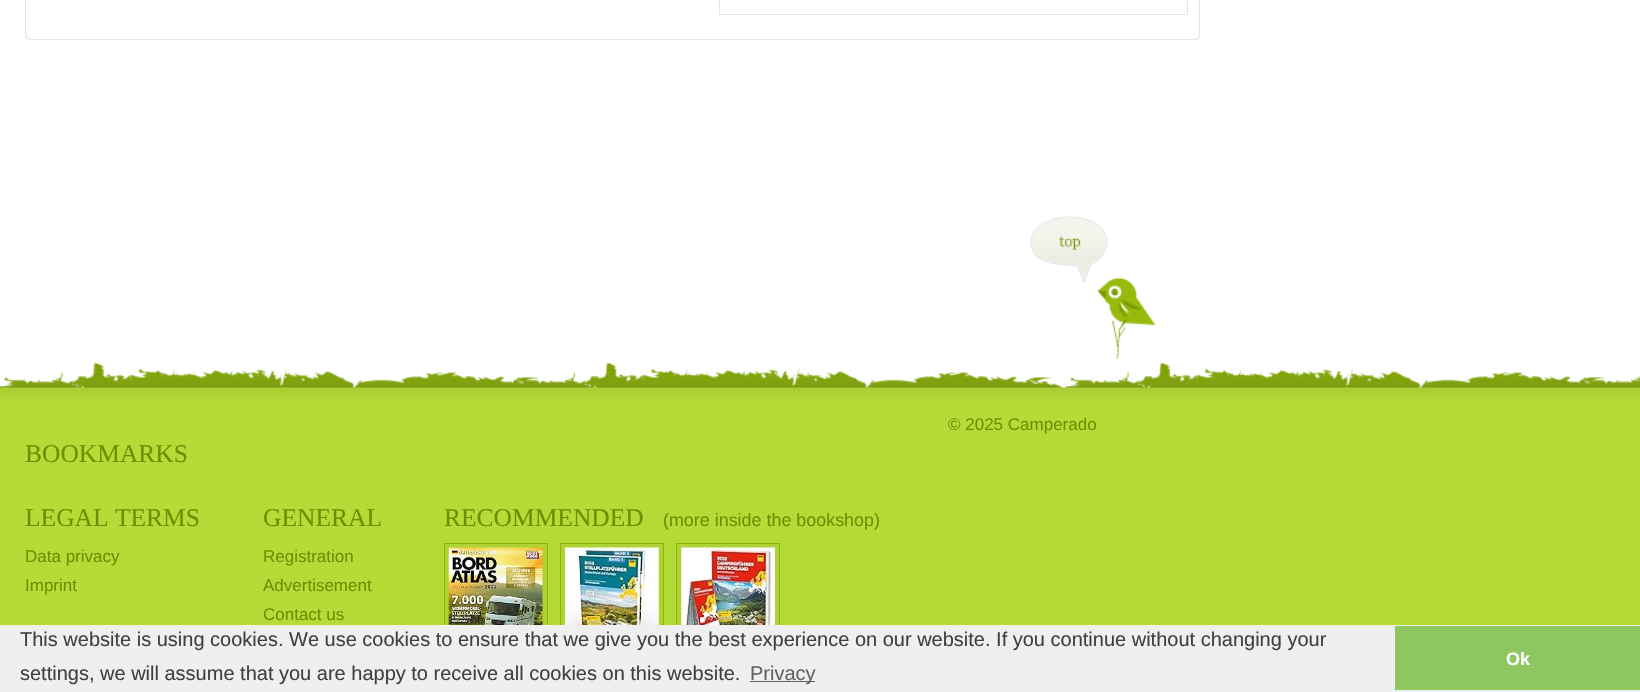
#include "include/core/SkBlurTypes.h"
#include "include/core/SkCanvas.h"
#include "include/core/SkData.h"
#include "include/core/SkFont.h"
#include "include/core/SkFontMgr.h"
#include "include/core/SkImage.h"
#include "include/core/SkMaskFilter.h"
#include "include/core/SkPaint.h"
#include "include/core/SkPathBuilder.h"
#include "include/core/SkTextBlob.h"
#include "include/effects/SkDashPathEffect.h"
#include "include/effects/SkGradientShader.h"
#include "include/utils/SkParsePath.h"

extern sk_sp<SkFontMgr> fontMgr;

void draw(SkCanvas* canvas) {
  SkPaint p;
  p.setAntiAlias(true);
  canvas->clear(SK_ColorWHITE);
  canvas->drawImageRect(SkImages::DeferredFromEncodedData(SkData::MakeFromFileName("images/1.png")), SkRect::MakeLTRB(0, 362, 1640, 625), SkSamplingOptions());
  p.setStyle(SkPaint::kStroke_Style);
  p.setStrokeWidth(1);
  p.setColor(SkColorSetRGB(229, 229, 229));
  canvas->drawRect(SkRect::MakeLTRB(25.5f, -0.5f, 1199.5f, 39.5f), p);
  canvas->drawRect(SkRect::MakeLTRB(719.5f, -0.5f, 1187.5f, 14.5f), p);
  canvas->drawImageRect(SkImages::DeferredFromEncodedData(SkData::MakeFromFileName("images/2.png")), SkRect::MakeLTRB(1186, 11, 1187, 13), SkSamplingOptions());
  canvas->drawImageRect(SkImages::DeferredFromEncodedData(SkData::MakeFromFileName("images/3.png")), SkRect::MakeLTRB(25, 35, 30, 40), SkSamplingOptions());
  canvas->drawImageRect(SkImages::DeferredFromEncodedData(SkData::MakeFromFileName("images/4.png")), SkRect::MakeLTRB(1195, 35, 1200, 40), SkSamplingOptions());
  canvas->drawImageRect(SkImages::DeferredFromEncodedData(SkData::MakeFromFileName("images/5.png")), SkRect::MakeLTRB(1030, 216, 1155, 359), SkSamplingOptions());
  p.setStyle(SkPaint::kFill_Style);
  p.setColor(SkColorSetRGB(175, 211, 52));
  canvas->drawRect(SkRect::MakeLTRB(445, 544, 547, 625), p);
  p.setStyle(SkPaint::kStroke_Style);
  p.setColor(SkColorSetRGB(142, 179, 15));
  canvas->drawRect(SkRect::MakeLTRB(444.5f, 543.5f, 547.5f, 673.5f), p);
  canvas->drawImageRect(SkImages::DeferredFromEncodedData(SkData::MakeFromFileName("images/6.png")), SkRect::MakeLTRB(448, 547, 543, 625), SkSamplingOptions());
  p.setStyle(SkPaint::kFill_Style);
  p.setColor(SkColorSetRGB(175, 211, 52));
  canvas->drawRect(SkRect::MakeLTRB(561, 544, 663, 625), p);
  p.setStyle(SkPaint::kStroke_Style);
  p.setColor(SkColorSetRGB(142, 179, 15));
  canvas->drawRect(SkRect::MakeLTRB(560.5f, 543.5f, 663.5f, 645.5f), p);
  canvas->drawImageRect(SkImages::DeferredFromEncodedData(SkData::MakeFromFileName("images/7.png")), SkRect::MakeLTRB(565, 547, 659, 625), SkSamplingOptions());
  p.setStyle(SkPaint::kFill_Style);
  p.setColor(SkColorSetRGB(175, 211, 52));
  canvas->drawRect(SkRect::MakeLTRB(677, 544, 779, 625), p);
  p.setStyle(SkPaint::kStroke_Style);
  p.setColor(SkColorSetRGB(142, 179, 15));
  canvas->drawRect(SkRect::MakeLTRB(676.5f, 543.5f, 779.5f, 645.5f), p);
  canvas->drawImageRect(SkImages::DeferredFromEncodedData(SkData::MakeFromFileName("images/8.png")), SkRect::MakeLTRB(681, 547, 775, 625), SkSamplingOptions());
  p.setStyle(SkPaint::kFill_Style);
  p.setColor(SkColorSetRGB(239, 239, 239));
  canvas->drawRect(SkRect::MakeLTRB(0, 625, 1640, 692), p);
  p.setColor(SkColorSetRGB(99, 99, 99));
  canvas->drawRect(SkRect::MakeLTRB(750, 681, 815, 682), p);
  p.setColor(SkColorSetRGB(142, 199, 96));
  canvas->drawRect(SkRect::MakeLTRB(1395, 626, 1640, 690), p);
  SkFont font1(fontMgr->matchFamilyStyle("Liberation Sans", SkFontStyle::Normal()), 17);
  font1.setSubpixel(true);
  p.setColor(SkColorSetRGB(110, 142, 1));
  canvas->drawString("© 2025 Camperado", 948, 430, font1, p);
  SkFont font2(fontMgr->matchFamilyStyle("Liberation Serif", SkFontStyle::Normal()), 25.5f);
  font2.setSubpixel(true);
  canvas->drawString("BOOKMARKS", 25, 462, font2, p);
  canvas->drawString("LEGAL TERMS", 25, 526, font2, p);
  canvas->drawString("Data privacy", 25, 562, font1, p);
  canvas->drawString("Imprint", 25, 591, font1, p);
  canvas->drawString("GENERAL", 263, 526, font2, p);
  canvas->drawString("Registration", 263, 562, font1, p);
  canvas->drawString("Advertisement", 263, 591, font1, p);
  canvas->drawString("Contact us", 263, 620, font1, p);
  canvas->drawString("RECOMMENDED", 444, 526, font2, p);
  SkFont font3(fontMgr->matchFamilyStyle("Liberation Sans", SkFontStyle::Normal()), 17.9f);
  font3.setSubpixel(true);
  canvas->drawString("(more inside the bookshop)", 663, 526, font3, p);
  SkFont font4(fontMgr->matchFamilyStyle("Liberation Sans", SkFontStyle::Normal()), 20);
  font4.setSubpixel(true);
  p.setColor(SkColorSetRGB(64, 64, 64));
  canvas->drawString("This website is using cookies. We use cookies to ensure that we give you the best experience on our website. If you continue without changing your", 20, 646, font4, p);
  canvas->drawString("settings, we will assume that you are happy to receive all cookies on this website.", 20, 680, font4, p);
  p.setColor(SkColorSetRGB(99, 99, 99));
  canvas->drawString("Privacy", 750, 680, font4, p);
  SkFont font5(fontMgr->matchFamilyStyle("Liberation Sans", SkFontStyle::Bold()), 18);
  font5.setSubpixel(true);
  p.setColor(SK_ColorWHITE);
  canvas->drawString("Ok", 1506, 665, font5, p);
}
